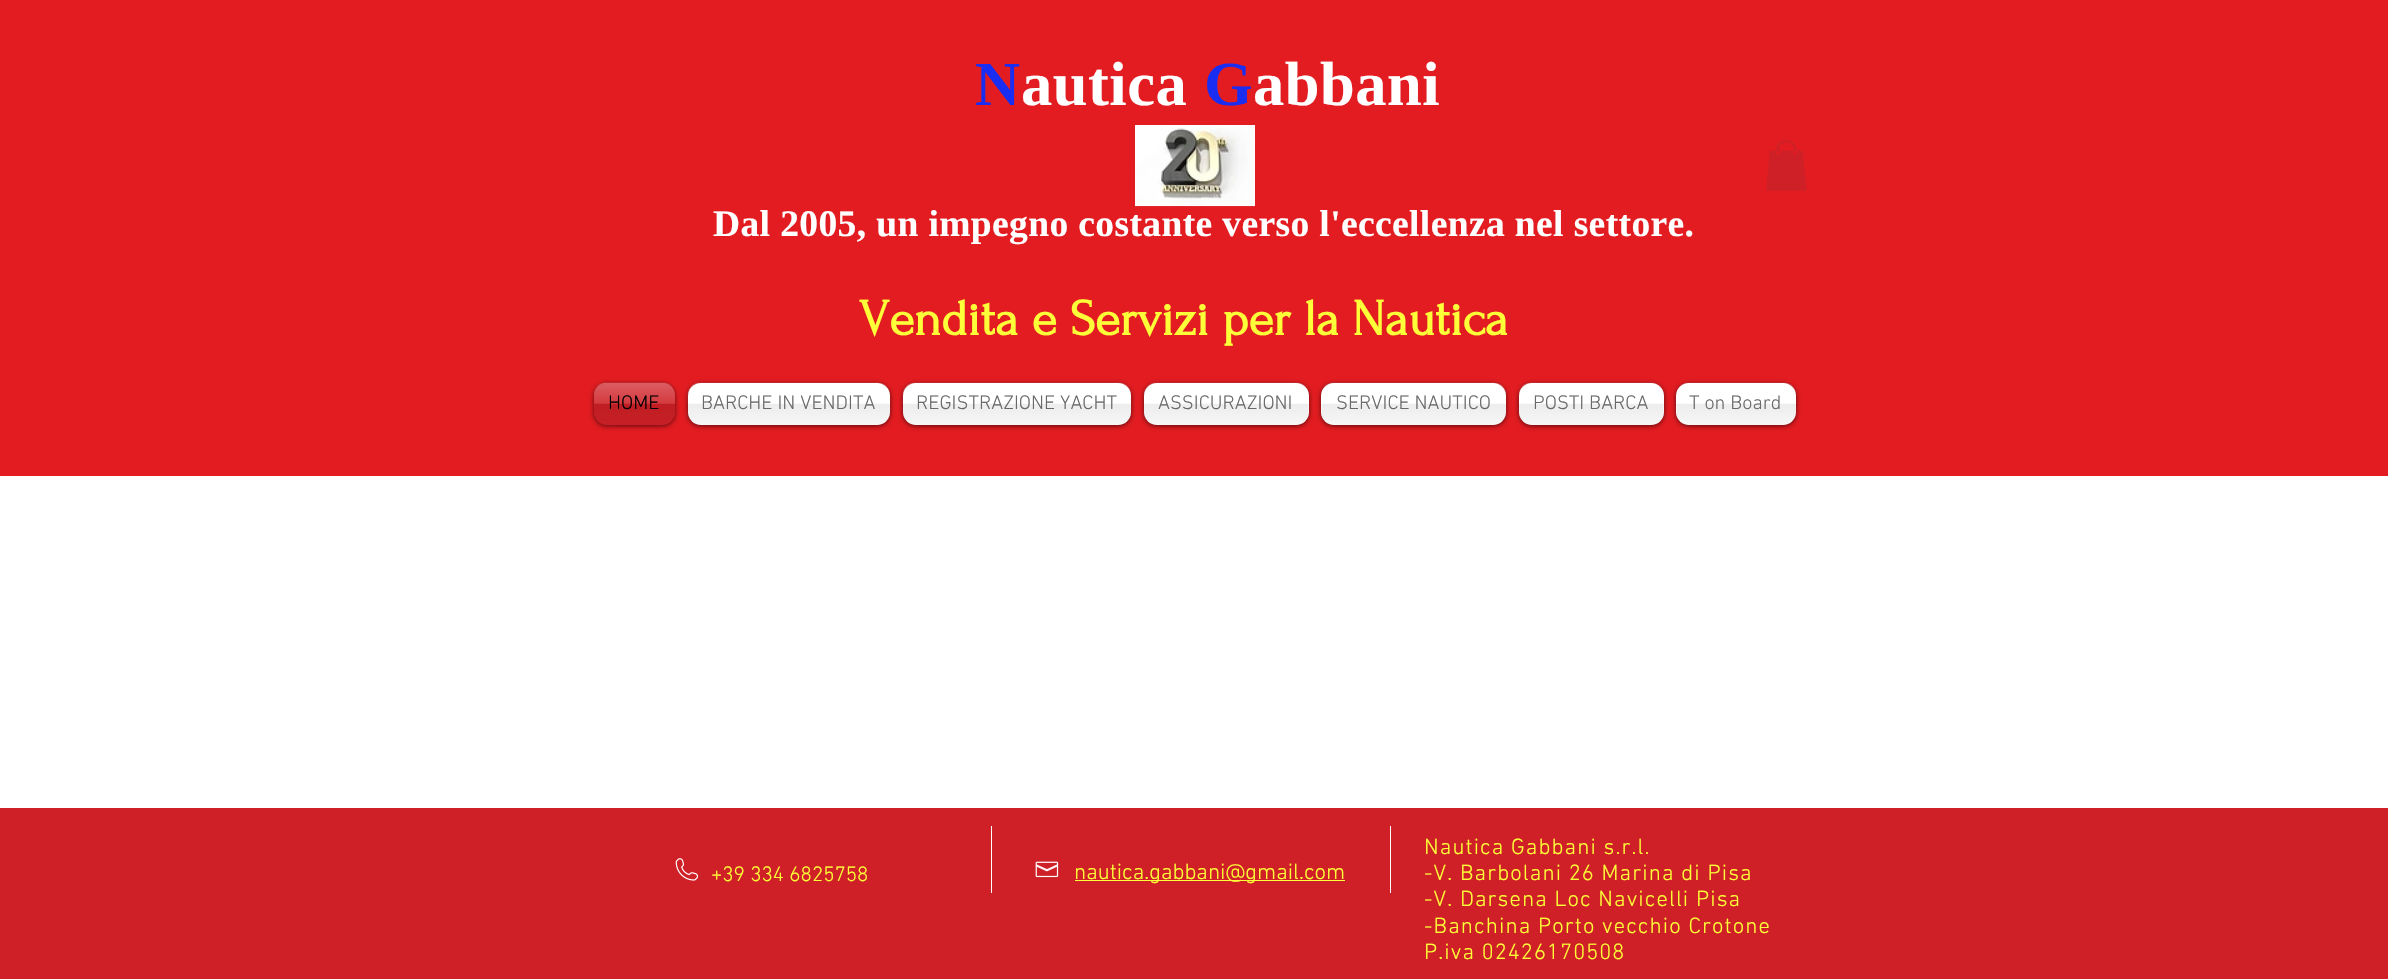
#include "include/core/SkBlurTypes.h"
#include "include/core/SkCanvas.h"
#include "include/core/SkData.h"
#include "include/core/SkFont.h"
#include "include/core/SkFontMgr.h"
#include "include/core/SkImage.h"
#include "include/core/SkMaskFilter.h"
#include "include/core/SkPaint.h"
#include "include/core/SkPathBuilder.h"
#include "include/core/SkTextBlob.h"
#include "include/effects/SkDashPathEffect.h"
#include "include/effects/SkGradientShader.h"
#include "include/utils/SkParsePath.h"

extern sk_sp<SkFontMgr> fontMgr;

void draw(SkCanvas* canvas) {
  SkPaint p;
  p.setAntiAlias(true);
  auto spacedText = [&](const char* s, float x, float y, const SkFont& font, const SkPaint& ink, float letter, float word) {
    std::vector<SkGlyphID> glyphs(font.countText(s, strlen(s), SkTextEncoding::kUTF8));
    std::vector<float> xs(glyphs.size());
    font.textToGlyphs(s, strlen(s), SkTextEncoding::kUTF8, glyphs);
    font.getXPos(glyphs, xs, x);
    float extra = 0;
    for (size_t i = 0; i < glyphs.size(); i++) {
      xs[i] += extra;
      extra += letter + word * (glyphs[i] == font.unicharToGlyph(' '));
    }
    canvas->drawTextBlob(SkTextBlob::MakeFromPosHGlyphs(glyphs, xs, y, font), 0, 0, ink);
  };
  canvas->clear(SK_ColorWHITE);
  p.setColor(SkColorSetRGB(226, 28, 33));
  canvas->drawRect(SkRect::MakeLTRB(0, 0, 2388, 476), p);
  canvas->drawImageRect(SkImages::DeferredFromEncodedData(SkData::MakeFromFileName("images/1.png")), SkRect::MakeLTRB(1135, 125, 1255, 207), SkSamplingOptions());
  p.setColor(SkColorSetARGB(153, 0, 0, 0));
  p.setMaskFilter(SkMaskFilter::MakeBlur(kNormal_SkBlurStyle, 2.5f));
  canvas->drawRoundRect(SkRect::MakeLTRB(594, 384, 675, 426), 13, 13, p);
  p.setMaskFilter(nullptr);
  p.setColor(SkColorSetRGB(206, 32, 38));
  canvas->drawRoundRect(SkRect::MakeLTRB(594, 383, 675, 425), 13, 13, p);
  canvas->drawImageRect(SkImages::DeferredFromEncodedData(SkData::MakeFromFileName("images/2.png")), SkRect::MakeLTRB(594, 382, 675, 425), SkSamplingOptions());
  p.setColor(SkColorSetARGB(153, 0, 0, 0));
  p.setMaskFilter(SkMaskFilter::MakeBlur(kNormal_SkBlurStyle, 2.5f));
  canvas->drawRoundRect(SkRect::MakeLTRB(688, 384, 890, 426), 13, 13, p);
  p.setMaskFilter(nullptr);
  p.setColor(SK_ColorWHITE);
  canvas->drawRoundRect(SkRect::MakeLTRB(688, 383, 890, 425), 13, 13, p);
  canvas->drawImageRect(SkImages::DeferredFromEncodedData(SkData::MakeFromFileName("images/3.png")), SkRect::MakeLTRB(687, 382, 890, 425), SkSamplingOptions());
  p.setColor(SkColorSetARGB(153, 0, 0, 0));
  p.setMaskFilter(SkMaskFilter::MakeBlur(kNormal_SkBlurStyle, 2.5f));
  canvas->drawRoundRect(SkRect::MakeLTRB(903, 384, 1131, 426), 13, 13, p);
  p.setMaskFilter(nullptr);
  p.setColor(SK_ColorWHITE);
  canvas->drawRoundRect(SkRect::MakeLTRB(903, 383, 1131, 425), 13, 13, p);
  canvas->drawImageRect(SkImages::DeferredFromEncodedData(SkData::MakeFromFileName("images/4.png")), SkRect::MakeLTRB(902, 382, 1131, 425), SkSamplingOptions());
  p.setColor(SkColorSetARGB(153, 0, 0, 0));
  p.setMaskFilter(SkMaskFilter::MakeBlur(kNormal_SkBlurStyle, 2.5f));
  canvas->drawRoundRect(SkRect::MakeLTRB(1144, 384, 1309, 426), 13, 13, p);
  p.setMaskFilter(nullptr);
  p.setColor(SK_ColorWHITE);
  canvas->drawRoundRect(SkRect::MakeLTRB(1144, 383, 1309, 425), 13, 13, p);
  canvas->drawImageRect(SkImages::DeferredFromEncodedData(SkData::MakeFromFileName("images/5.png")), SkRect::MakeLTRB(1144, 382, 1309, 425), SkSamplingOptions());
  p.setColor(SkColorSetARGB(153, 0, 0, 0));
  p.setMaskFilter(SkMaskFilter::MakeBlur(kNormal_SkBlurStyle, 2.5f));
  canvas->drawRoundRect(SkRect::MakeLTRB(1321, 384, 1506, 426), 13, 13, p);
  p.setMaskFilter(nullptr);
  p.setColor(SK_ColorWHITE);
  canvas->drawRoundRect(SkRect::MakeLTRB(1321, 383, 1506, 425), 13, 13, p);
  canvas->drawImageRect(SkImages::DeferredFromEncodedData(SkData::MakeFromFileName("images/6.png")), SkRect::MakeLTRB(1321, 382, 1506, 425), SkSamplingOptions());
  p.setColor(SkColorSetARGB(153, 0, 0, 0));
  p.setMaskFilter(SkMaskFilter::MakeBlur(kNormal_SkBlurStyle, 2.5f));
  canvas->drawRoundRect(SkRect::MakeLTRB(1519, 384, 1664, 426), 13, 13, p);
  p.setMaskFilter(nullptr);
  p.setColor(SK_ColorWHITE);
  canvas->drawRoundRect(SkRect::MakeLTRB(1519, 383, 1664, 425), 13, 13, p);
  canvas->drawImageRect(SkImages::DeferredFromEncodedData(SkData::MakeFromFileName("images/7.png")), SkRect::MakeLTRB(1519, 382, 1664, 425), SkSamplingOptions());
  p.setColor(SkColorSetARGB(153, 0, 0, 0));
  p.setMaskFilter(SkMaskFilter::MakeBlur(kNormal_SkBlurStyle, 2.5f));
  canvas->drawRoundRect(SkRect::MakeLTRB(1676, 384, 1796, 426), 13, 13, p);
  p.setMaskFilter(nullptr);
  p.setColor(SK_ColorWHITE);
  canvas->drawRoundRect(SkRect::MakeLTRB(1676, 383, 1796, 425), 13, 13, p);
  canvas->drawImageRect(SkImages::DeferredFromEncodedData(SkData::MakeFromFileName("images/8.png")), SkRect::MakeLTRB(1676, 382, 1796, 425), SkSamplingOptions());
  canvas->drawImageRect(SkImages::DeferredFromEncodedData(SkData::MakeFromFileName("images/9.png")), SkRect::MakeLTRB(1766, 140, 1807, 191), SkSamplingOptions());
  p.setColor(SkColorSetRGB(206, 32, 38));
  canvas->drawRect(SkRect::MakeLTRB(0, 826, 2388, 979), p);
  p.setColor(SK_ColorWHITE);
  canvas->drawRect(SkRect::MakeLTRB(991, 824, 992, 893), p);
  canvas->drawRect(SkRect::MakeLTRB(1390, 824, 1391, 893), p);
  p.setColor(SkColorSetRGB(206, 32, 38));
  canvas->drawRect(SkRect::MakeLTRB(0, 808, 2388, 826), p);
  canvas->drawImageRect(SkImages::DeferredFromEncodedData(SkData::MakeFromFileName("images/10.png")), SkRect::MakeLTRB(675, 858, 699, 881), SkSamplingOptions());
  canvas->drawImageRect(SkImages::DeferredFromEncodedData(SkData::MakeFromFileName("images/11.png")), SkRect::MakeLTRB(1035, 861, 1059, 878), SkSamplingOptions());
  p.setColor(SkColorSetRGB(253, 255, 56));
  canvas->drawRect(SkRect::MakeLTRB(1075, 880, 1345, 881), p);
  SkFont font1(fontMgr->matchFamilyStyle("Liberation Serif", SkFontStyle::Bold()), 62.5f);
  font1.setSubpixel(true);
  p.setColor(SkColorSetRGB(26, 45, 243));
  spacedText("N", 975, 105, font1, p, 0.5f, 0);
  p.setColor(SK_ColorWHITE);
  spacedText("autica", 1021, 105, font1, p, 0.5f, 0);
  p.setColor(SkColorSetRGB(26, 45, 243));
  spacedText("G", 1204, 105, font1, p, 0.5f, 0);
  p.setColor(SK_ColorWHITE);
  spacedText("abbani", 1253, 105, font1, p, 0.5f, 0);
  SkFont font2(fontMgr->matchFamilyStyle("Liberation Serif", SkFontStyle::Bold()), 37.5f);
  font2.setSubpixel(true);
  spacedText("Dal 2005, un impegno costante verso l'eccellenza nel settore.", 713, 236, font2, p, 0.38f, 0);
  SkFont font3(fontMgr->matchFamilyStyle("Forum", SkFontStyle::Bold()), 51.25f);
  font3.setSubpixel(true);
  p.setColor(SkColorSetRGB(253, 255, 56));
  canvas->drawString("Vendita e Servizi per la Nautica", 859, 335, font3, p);
  SkFont font4(fontMgr->matchFamilyStyle("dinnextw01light", SkFontStyle(300, SkFontStyle::kNormal_Width, SkFontStyle::kUpright_Slant)), 20);
  font4.setSubpixel(true);
  p.setColor(SK_ColorBLACK);
  canvas->drawString("HOME", 608, 409, font4, p);
  p.setColor(SkColorSetRGB(105, 105, 105));
  canvas->drawString("BARCHE IN VENDITA", 701, 409, font4, p);
  canvas->drawString("REGISTRAZIONE YACHT", 916, 409, font4, p);
  canvas->drawString("ASSICURAZIONI", 1158, 409, font4, p);
  canvas->drawString("SERVICE NAUTICO", 1336, 409, font4, p);
  canvas->drawString("POSTI BARCA", 1533, 409, font4, p);
  canvas->drawString("T on Board", 1689, 409, font4, p);
  SkFont font5(fontMgr->matchFamilyStyle("dinnextw01light", SkFontStyle(300, SkFontStyle::kNormal_Width, SkFontStyle::kUpright_Slant)), 21.25f);
  font5.setSubpixel(true);
  p.setColor(SkColorSetRGB(253, 255, 56));
  canvas->drawString("+39 334 6825758", 711, 881, font5, p);
  SkFont font6(fontMgr->matchFamilyStyle("dinnextw01light", SkFontStyle(300, SkFontStyle::kNormal_Width, SkFontStyle::kUpright_Slant)), 22.5f);
  font6.setSubpixel(true);
  canvas->drawString("nautica.gabbani@gmail.com", 1074, 879, font6, p);
  spacedText("Nautica Gabbani s.r.l.", 1424, 854, font6, p, 1.1f, 0);
  spacedText("-V. Barbolani 26 Marina di Pisa", 1424, 880, font6, p, 1.1f, 0);
  spacedText("-V. Darsena Loc Navicelli Pisa", 1424, 906, font6, p, 1.1f, 0);
  spacedText("-Banchina Porto vecchio Crotone", 1424, 933, font6, p, 1.1f, 0);
  spacedText("P.iva 02426170508", 1424, 959, font6, p, 1.1f, 0);
}
